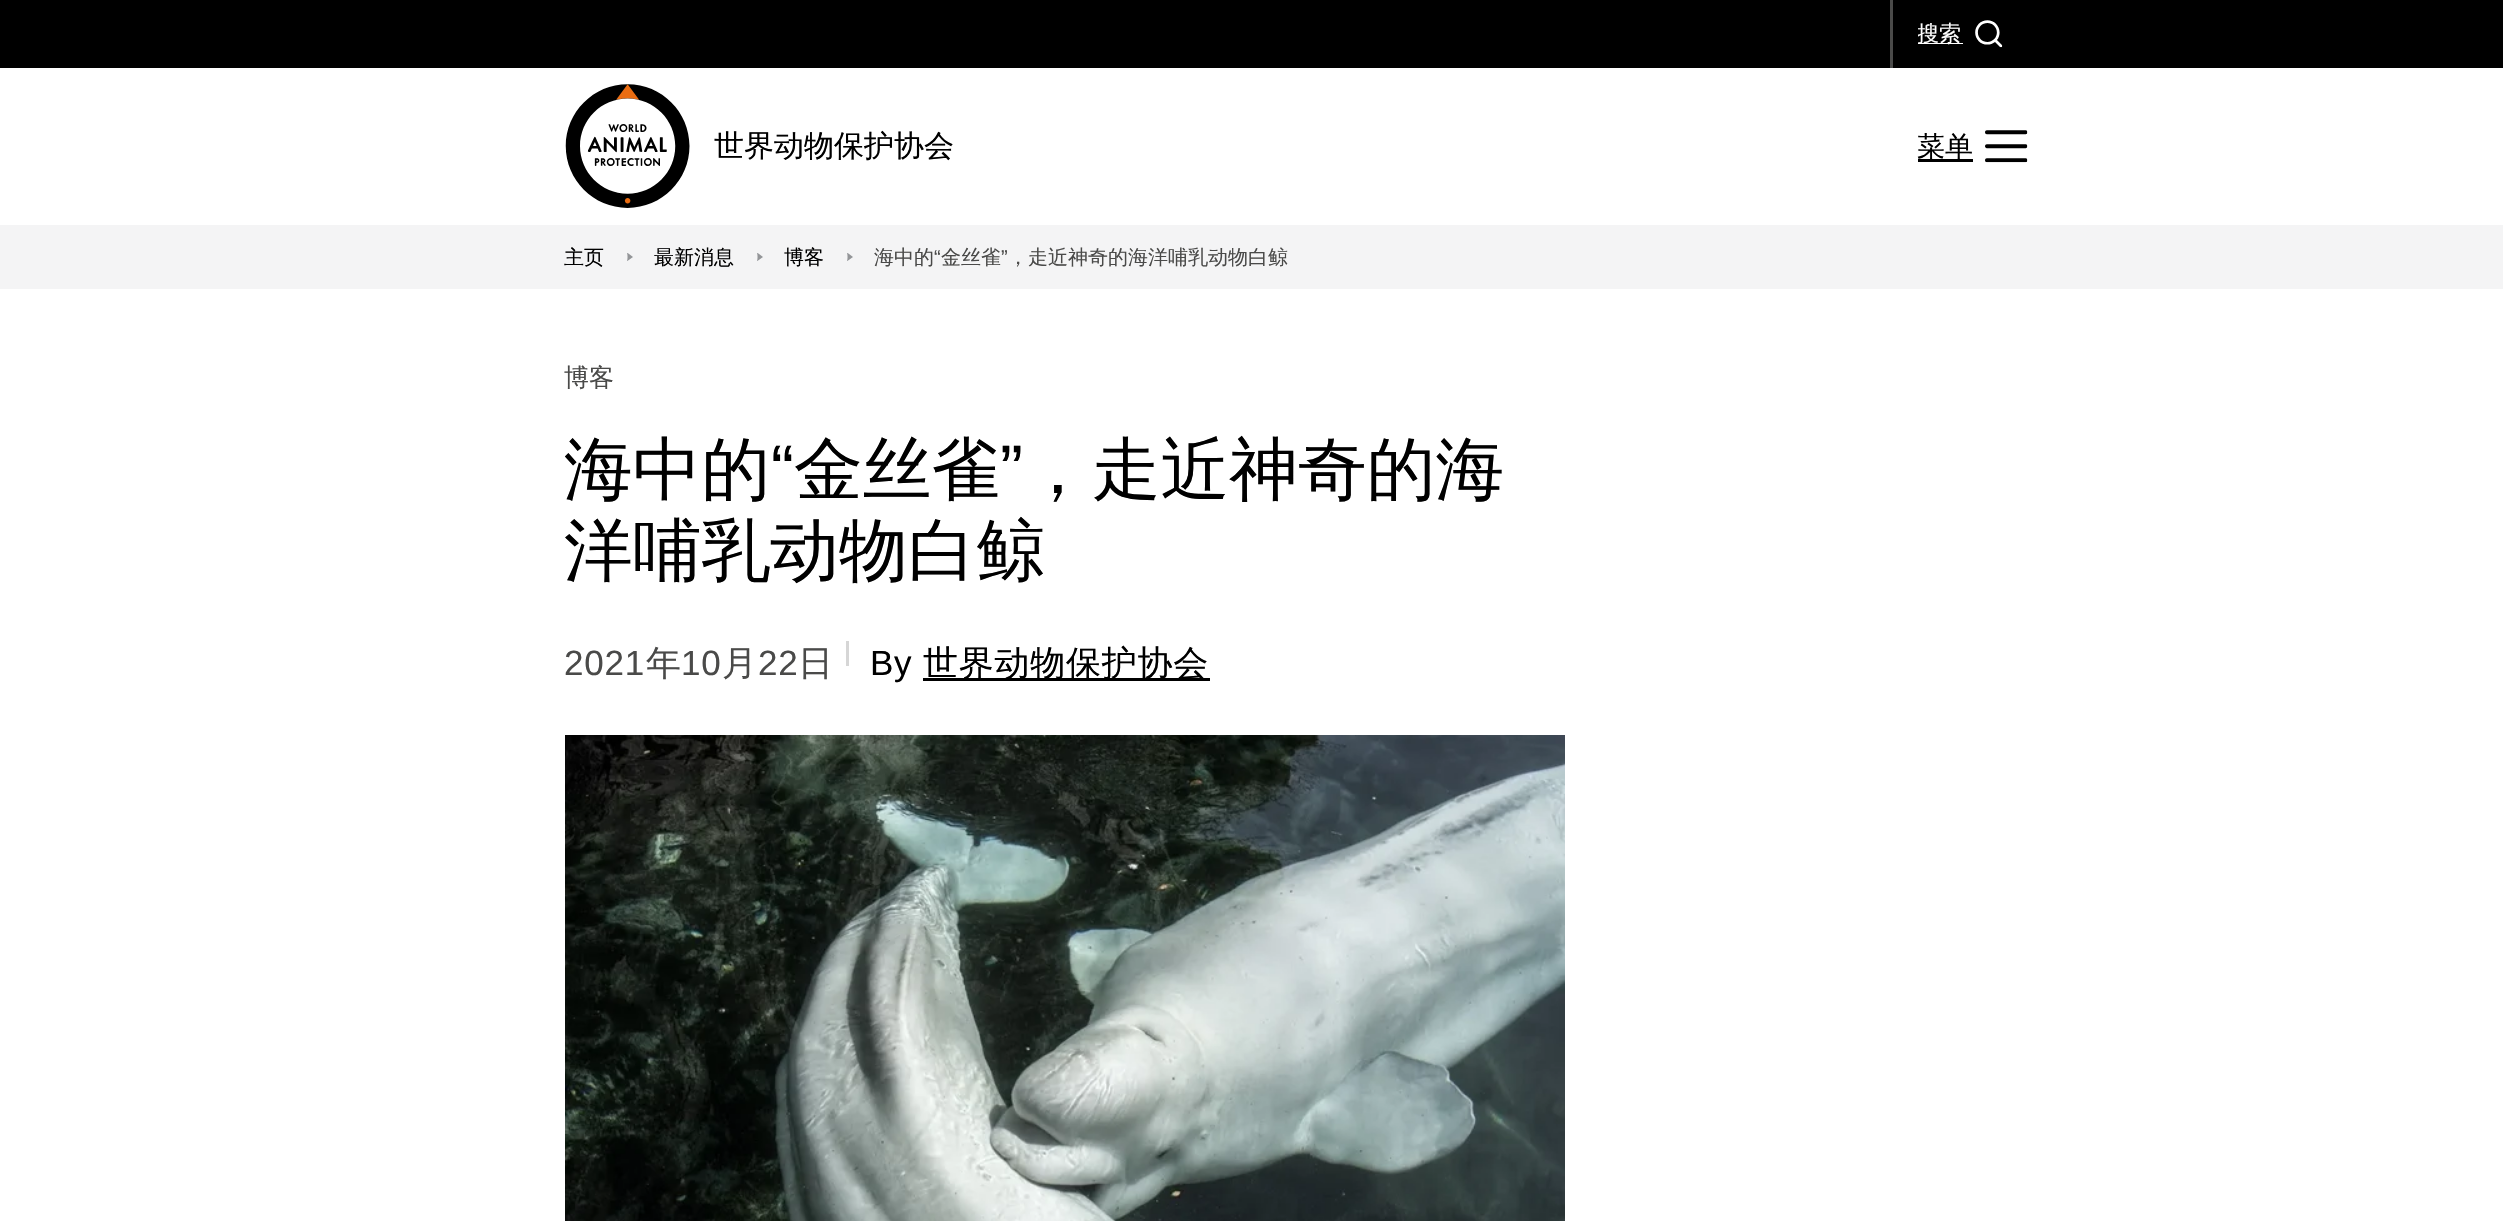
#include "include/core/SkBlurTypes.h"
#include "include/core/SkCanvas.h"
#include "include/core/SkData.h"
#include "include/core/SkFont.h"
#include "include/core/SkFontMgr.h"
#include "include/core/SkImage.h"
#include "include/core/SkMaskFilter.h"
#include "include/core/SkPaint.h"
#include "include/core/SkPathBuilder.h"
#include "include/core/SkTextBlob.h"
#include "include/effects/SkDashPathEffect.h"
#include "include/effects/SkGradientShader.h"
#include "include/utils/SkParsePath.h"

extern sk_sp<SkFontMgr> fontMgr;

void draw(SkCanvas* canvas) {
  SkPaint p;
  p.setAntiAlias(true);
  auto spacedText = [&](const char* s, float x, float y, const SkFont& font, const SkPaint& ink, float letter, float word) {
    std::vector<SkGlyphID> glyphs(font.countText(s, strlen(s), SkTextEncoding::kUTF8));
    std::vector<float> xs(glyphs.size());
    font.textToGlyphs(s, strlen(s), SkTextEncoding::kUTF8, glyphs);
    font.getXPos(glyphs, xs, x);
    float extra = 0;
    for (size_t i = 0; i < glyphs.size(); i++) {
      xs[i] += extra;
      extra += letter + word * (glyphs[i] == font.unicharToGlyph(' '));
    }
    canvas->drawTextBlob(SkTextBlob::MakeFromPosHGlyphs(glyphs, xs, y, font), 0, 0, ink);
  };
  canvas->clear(SK_ColorWHITE);
  p.setColor(SK_ColorBLACK);
  canvas->drawRect(SkRect::MakeLTRB(0, 0, 2503, 68), p);
  p.setColor(SkColorSetRGB(74, 74, 73));
  canvas->drawRect(SkRect::MakeLTRB(1890, 0, 1893, 68), p);
  p.setColor(SK_ColorWHITE);
  canvas->drawRect(SkRect::MakeLTRB(1918, 43, 1963, 44), p);
  canvas->drawImageRect(SkImages::DeferredFromEncodedData(SkData::MakeFromFileName("images/1.png")), SkRect::MakeLTRB(1975, 20, 2003, 48), SkSamplingOptions());
  canvas->drawImageRect(SkImages::DeferredFromEncodedData(SkData::MakeFromFileName("images/2.png")), SkRect::MakeLTRB(565, 84, 690, 208), SkSamplingOptions());
  p.setColor(SK_ColorBLACK);
  canvas->drawRect(SkRect::MakeLTRB(1918, 159, 1973, 162), p);
  canvas->drawImageRect(SkImages::DeferredFromEncodedData(SkData::MakeFromFileName("images/3.png")), SkRect::MakeLTRB(1985, 130, 2028, 163), SkSamplingOptions());
  p.setColor(SkColorSetRGB(244, 244, 245));
  canvas->drawRect(SkRect::MakeLTRB(0, 225, 2503, 289), p);
  canvas->drawImageRect(SkImages::DeferredFromEncodedData(SkData::MakeFromFileName("images/4.png")), SkRect::MakeLTRB(627, 253, 633, 261), SkSamplingOptions());
  canvas->drawImageRect(SkImages::DeferredFromEncodedData(SkData::MakeFromFileName("images/4.png")), SkRect::MakeLTRB(757, 253, 763, 261), SkSamplingOptions());
  canvas->drawImageRect(SkImages::DeferredFromEncodedData(SkData::MakeFromFileName("images/4.png")), SkRect::MakeLTRB(847, 253, 853, 261), SkSamplingOptions());
  p.setColor(SkColorSetRGB(214, 214, 214));
  canvas->drawRect(SkRect::MakeLTRB(846, 641, 849, 666), p);
  p.setColor(SK_ColorBLACK);
  canvas->drawRect(SkRect::MakeLTRB(923, 678, 1210, 681), p);
  canvas->drawImageRect(SkImages::DeferredFromEncodedData(SkData::MakeFromFileName("images/5.png")), SkRect::MakeLTRB(565, 735, 1565, 1221), SkSamplingOptions());
  canvas->save();
  canvas->clipRect(SkRect::MakeLTRB(1918, 18, 1963, 51));
  SkFont font1(fontMgr->matchFamilyStyle("WenQuanYi Zen Hei", SkFontStyle(500, SkFontStyle::kNormal_Width, SkFontStyle::kUpright_Slant)), 22);
  font1.setSubpixel(true);
  p.setColor(SK_ColorWHITE);
  canvas->drawString("搜索", 1917, 41, font1, p);
  canvas->restore();
  SkFont font2(fontMgr->matchFamilyStyle("WenQuanYi Zen Hei", SkFontStyle(500, SkFontStyle::kNormal_Width, SkFontStyle::kUpright_Slant)), 30);
  font2.setSubpixel(true);
  p.setColor(SK_ColorBLACK);
  canvas->drawString("世界动物保护协会", 714, 156, font2, p);
  SkFont font3(fontMgr->matchFamilyStyle("WenQuanYi Zen Hei", SkFontStyle(500, SkFontStyle::kNormal_Width, SkFontStyle::kUpright_Slant)), 28);
  font3.setSubpixel(true);
  canvas->drawString("菜单", 1917, 156, font3, p);
  SkFont font4(fontMgr->matchFamilyStyle("WenQuanYi Zen Hei", SkFontStyle(500, SkFontStyle::kNormal_Width, SkFontStyle::kUpright_Slant)), 20);
  font4.setSubpixel(true);
  canvas->drawString("主页", 564, 264, font4, p);
  canvas->drawString("最新消息", 654, 264, font4, p);
  canvas->drawString("博客", 784, 264, font4, p);
  p.setColor(SkColorSetRGB(74, 74, 73));
  canvas->drawString("海中的", 874, 264, font4, p);
  SkFont font5(fontMgr->matchFamilyStyle("Liberation Sans", SkFontStyle::Normal()), 20);
  font5.setSubpixel(true);
  canvas->drawString("“", 934, 264, font5, p);
  canvas->drawString("金丝雀", 941, 264, font4, p);
  canvas->drawString("”", 1001, 264, font5, p);
  canvas->drawString("，走近神奇的海洋哺乳动物白鲸", 1008, 264, font4, p);
  SkFont font6(fontMgr->matchFamilyStyle("WenQuanYi Zen Hei", SkFontStyle(500, SkFontStyle::kNormal_Width, SkFontStyle::kUpright_Slant)), 25);
  font6.setSubpixel(true);
  canvas->drawString("博客", 564, 386, font6, p);
  SkFont font7(fontMgr->matchFamilyStyle("WenQuanYi Zen Hei", SkFontStyle(500, SkFontStyle::kNormal_Width, SkFontStyle::kUpright_Slant)), 68.75f);
  font7.setSubpixel(true);
  p.setColor(SK_ColorBLACK);
  canvas->drawString("海中的", 564, 493, font7, p);
  SkFont font8(fontMgr->matchFamilyStyle("Liberation Sans", SkFontStyle::Normal()), 68.75f);
  font8.setSubpixel(true);
  canvas->drawString("“", 771, 493, font8, p);
  canvas->drawString("金丝雀", 794, 493, font7, p);
  canvas->drawString("”", 1000, 493, font8, p);
  canvas->drawString("，走近神奇的海", 1023, 493, font7, p);
  canvas->drawString("洋哺乳动物白鲸", 564, 574, font7, p);
  SkFont font9(fontMgr->matchFamilyStyle("Liberation Sans", SkFontStyle::Normal()), 35);
  font9.setSubpixel(true);
  p.setColor(SkColorSetRGB(74, 74, 73));
  spacedText("2021", 564, 675, font9, p, 0.75f, 0);
  SkFont font10(fontMgr->matchFamilyStyle("WenQuanYi Zen Hei", SkFontStyle(500, SkFontStyle::kNormal_Width, SkFontStyle::kUpright_Slant)), 35);
  font10.setSubpixel(true);
  spacedText("年", 646, 675, font10, p, 0.75f, 0);
  spacedText("10", 681, 675, font9, p, 0.75f, 0);
  spacedText("月", 722, 675, font10, p, 0.75f, 0);
  spacedText("22", 758, 675, font9, p, 0.75f, 0);
  spacedText("日", 798, 675, font10, p, 0.75f, 0);
  p.setColor(SK_ColorBLACK);
  spacedText("By", 870, 675, font9, p, 0.75f, 0);
  spacedText("世界动物保护协会", 923, 675, font10, p, 0.75f, 0);
}
